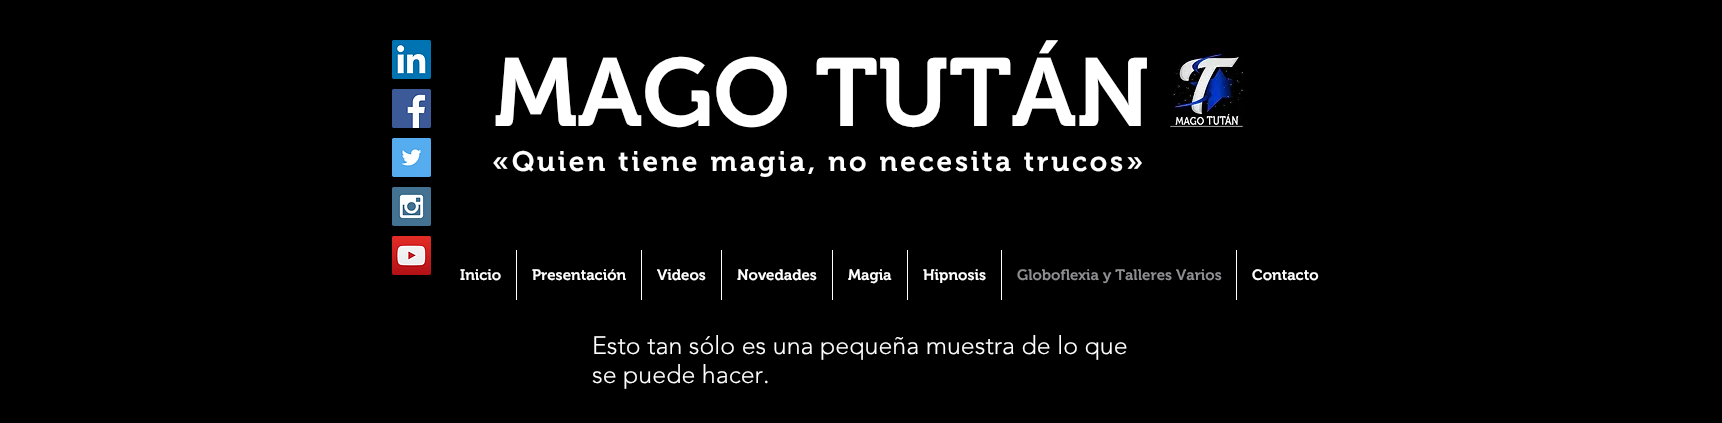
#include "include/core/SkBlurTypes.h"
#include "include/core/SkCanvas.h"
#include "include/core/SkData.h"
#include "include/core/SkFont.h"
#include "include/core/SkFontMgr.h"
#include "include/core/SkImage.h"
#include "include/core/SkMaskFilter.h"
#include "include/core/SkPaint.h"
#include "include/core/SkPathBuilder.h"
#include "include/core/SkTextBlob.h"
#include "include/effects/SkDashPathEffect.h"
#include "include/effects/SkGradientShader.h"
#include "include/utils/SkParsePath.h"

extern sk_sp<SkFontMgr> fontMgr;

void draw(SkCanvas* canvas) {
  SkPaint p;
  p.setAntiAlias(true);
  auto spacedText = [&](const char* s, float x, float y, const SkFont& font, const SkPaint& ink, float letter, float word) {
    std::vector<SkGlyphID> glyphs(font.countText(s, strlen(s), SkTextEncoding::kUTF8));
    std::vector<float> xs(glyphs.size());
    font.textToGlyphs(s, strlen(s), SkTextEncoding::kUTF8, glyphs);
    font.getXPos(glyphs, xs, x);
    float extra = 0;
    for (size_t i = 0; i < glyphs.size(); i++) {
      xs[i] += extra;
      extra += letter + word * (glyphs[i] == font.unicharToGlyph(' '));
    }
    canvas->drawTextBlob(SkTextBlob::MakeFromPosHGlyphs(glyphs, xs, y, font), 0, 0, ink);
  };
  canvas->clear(SK_ColorBLACK);
  canvas->drawImageRect(SkImages::DeferredFromEncodedData(SkData::MakeFromFileName("images/1.png")), SkRect::MakeLTRB(392, 40, 431, 79), SkSamplingOptions());
  canvas->drawImageRect(SkImages::DeferredFromEncodedData(SkData::MakeFromFileName("images/2.png")), SkRect::MakeLTRB(392, 89, 431, 128), SkSamplingOptions());
  canvas->drawImageRect(SkImages::DeferredFromEncodedData(SkData::MakeFromFileName("images/3.png")), SkRect::MakeLTRB(392, 138, 431, 177), SkSamplingOptions());
  canvas->drawImageRect(SkImages::DeferredFromEncodedData(SkData::MakeFromFileName("images/4.png")), SkRect::MakeLTRB(392, 187, 431, 226), SkSamplingOptions());
  canvas->drawImageRect(SkImages::DeferredFromEncodedData(SkData::MakeFromFileName("images/5.png")), SkRect::MakeLTRB(392, 236, 431, 275), SkSamplingOptions());
  canvas->drawImageRect(SkImages::DeferredFromEncodedData(SkData::MakeFromFileName("images/6.png")), SkRect::MakeLTRB(1170, 48, 1246, 128), SkSamplingOptions());
  p.setColor(SK_ColorWHITE);
  canvas->drawRect(SkRect::MakeLTRB(516, 250, 517, 300), p);
  canvas->drawRect(SkRect::MakeLTRB(641, 250, 642, 300), p);
  canvas->drawRect(SkRect::MakeLTRB(721, 250, 722, 300), p);
  canvas->drawRect(SkRect::MakeLTRB(832, 250, 833, 300), p);
  canvas->drawRect(SkRect::MakeLTRB(907, 250, 908, 300), p);
  canvas->drawRect(SkRect::MakeLTRB(1001, 250, 1002, 300), p);
  canvas->drawRect(SkRect::MakeLTRB(1236, 250, 1237, 300), p);
  SkFont font1(fontMgr->matchFamilyStyle("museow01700", SkFontStyle(600, SkFontStyle::kNormal_Width, SkFontStyle::kUpright_Slant)), 96);
  font1.setSubpixel(true);
  canvas->drawString("MAGO TUTÁN", 494, 126, font1, p);
  SkFont font2(fontMgr->matchFamilyStyle("museow01700", SkFontStyle(600, SkFontStyle::kNormal_Width, SkFontStyle::kUpright_Slant)), 28);
  font2.setSubpixel(true);
  spacedText("«Quien tiene magia, no necesita trucos»", 492, 171, font2, p, 2.8f, 0);
  SkFont font3(fontMgr->matchFamilyStyle("museow01700", SkFontStyle(600, SkFontStyle::kNormal_Width, SkFontStyle::kUpright_Slant)), 15);
  font3.setSubpixel(true);
  canvas->drawString("Inicio", 460, 280, font3, p);
  canvas->drawString("Presentación", 532, 280, font3, p);
  canvas->drawString("Videos", 657, 280, font3, p);
  canvas->drawString("Novedades", 737, 280, font3, p);
  canvas->drawString("Magia", 848, 280, font3, p);
  canvas->drawString("Hipnosis", 923, 280, font3, p);
  p.setColor(SkColorSetRGB(142, 141, 145));
  canvas->drawString("Globoflexia y Talleres Varios", 1017, 280, font3, p);
  p.setColor(SK_ColorWHITE);
  canvas->drawString("Contacto", 1252, 280, font3, p);
  SkFont font4(fontMgr->matchFamilyStyle("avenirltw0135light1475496", SkFontStyle(300, SkFontStyle::kNormal_Width, SkFontStyle::kUpright_Slant)), 25);
  font4.setSubpixel(true);
  canvas->drawString("Esto tan sólo es una pequeña muestra de lo que", 592, 354, font4, p);
  canvas->drawString("se puede hacer.", 592, 383, font4, p);
}
